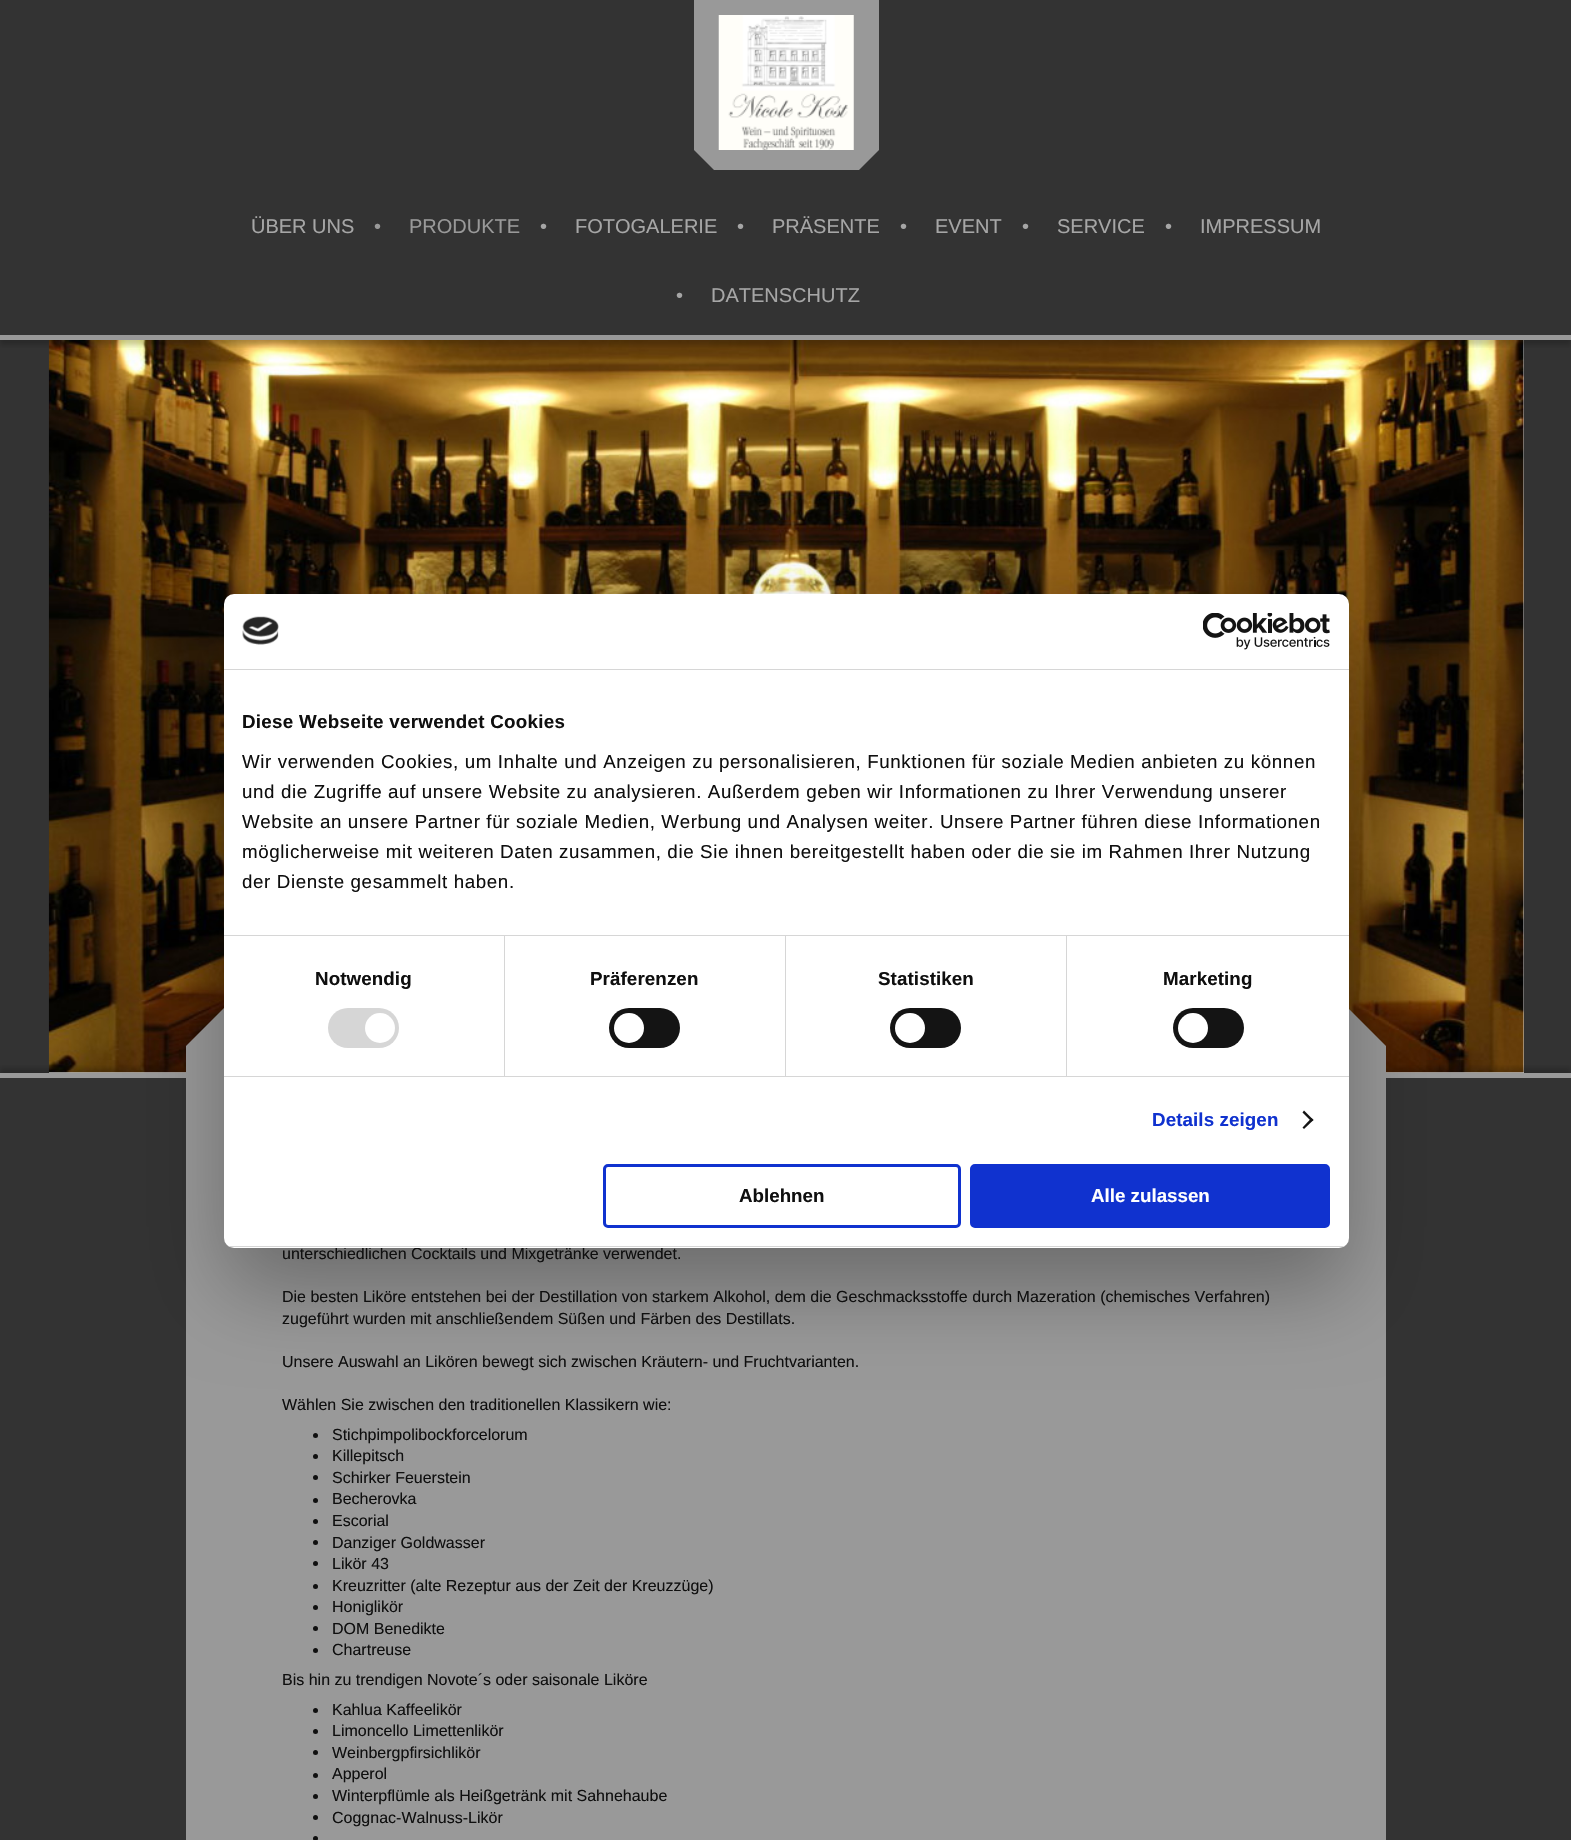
#include "include/core/SkBlurTypes.h"
#include "include/core/SkCanvas.h"
#include "include/core/SkData.h"
#include "include/core/SkFont.h"
#include "include/core/SkFontMgr.h"
#include "include/core/SkImage.h"
#include "include/core/SkMaskFilter.h"
#include "include/core/SkPaint.h"
#include "include/core/SkPathBuilder.h"
#include "include/core/SkTextBlob.h"
#include "include/effects/SkDashPathEffect.h"
#include "include/effects/SkGradientShader.h"
#include "include/utils/SkParsePath.h"

extern sk_sp<SkFontMgr> fontMgr;

void draw(SkCanvas* canvas) {
  SkPaint p;
  p.setAntiAlias(true);
  auto spacedText = [&](const char* s, float x, float y, const SkFont& font, const SkPaint& ink, float letter, float word) {
    std::vector<SkGlyphID> glyphs(font.countText(s, strlen(s), SkTextEncoding::kUTF8));
    std::vector<float> xs(glyphs.size());
    font.textToGlyphs(s, strlen(s), SkTextEncoding::kUTF8, glyphs);
    font.getXPos(glyphs, xs, x);
    float extra = 0;
    for (size_t i = 0; i < glyphs.size(); i++) {
      xs[i] += extra;
      extra += letter + word * (glyphs[i] == font.unicharToGlyph(' '));
    }
    canvas->drawTextBlob(SkTextBlob::MakeFromPosHGlyphs(glyphs, xs, y, font), 0, 0, ink);
  };
  canvas->clear(SkColorSetRGB(51, 51, 51));
  p.setColor(SkColorSetRGB(153, 153, 153));
  canvas->drawRect(SkRect::MakeLTRB(694, 0, 879, 150), p);
  canvas->drawImageRect(SkImages::DeferredFromEncodedData(SkData::MakeFromFileName("images/1.png")), SkRect::MakeLTRB(718, 15, 854, 150), SkSamplingOptions());
  canvas->drawPath(SkPathBuilder().moveTo(694, 150).lineTo(879, 150).lineTo(859, 170).lineTo(714, 170).close().detach(), p);
  p.setColor(SkColorSetRGB(238, 238, 238));
  canvas->drawRect(SkRect::MakeLTRB(49, 340, 1524, 1073), p);
  canvas->drawImageRect(SkImages::DeferredFromEncodedData(SkData::MakeFromFileName("images/2.png")), SkRect::MakeLTRB(48, 340, 1524, 1073), SkSamplingOptions());
  canvas->save();
  canvas->clipRect(SkRect::MakeLTRB(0, 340, 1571, 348));
  p.setColor(SkColorSetARGB(51, 0, 0, 0));
  p.setMaskFilter(SkMaskFilter::MakeBlur(kNormal_SkBlurStyle, 2.5f));
  canvas->drawRect(SkRect::MakeLTRB(0, 190, 1571, 345), p);
  p.setMaskFilter(nullptr);
  canvas->restore();
  p.setColor(SkColorSetRGB(153, 153, 153));
  canvas->drawRect(SkRect::MakeLTRB(0, 335, 1571, 340), p);
  canvas->save();
  canvas->clipRect(SkRect::MakeLTRB(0, 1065, 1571, 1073));
  p.setColor(SkColorSetARGB(51, 0, 0, 0));
  p.setMaskFilter(SkMaskFilter::MakeBlur(kNormal_SkBlurStyle, 2.5f));
  canvas->drawRect(SkRect::MakeLTRB(0, 1068, 1571, 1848), p);
  p.setMaskFilter(nullptr);
  canvas->restore();
  p.setColor(SkColorSetRGB(153, 153, 153));
  canvas->drawRect(SkRect::MakeLTRB(0, 1073, 1571, 1078), p);
  canvas->drawRect(SkRect::MakeLTRB(186, 1046, 1386, 1840), p);
  p.setColor(SkColorSetARGB(128, 0, 0, 0));
  p.setMaskFilter(SkMaskFilter::MakeBlur(kNormal_SkBlurStyle, 2));
  canvas->drawRoundRect(SkRect::MakeLTRB(226, 1003, 1346, 1023), 10, 10, p);
  p.setMaskFilter(nullptr);
  p.setColor(SkColorSetRGB(153, 153, 153));
  canvas->drawPath(SkPathBuilder().moveTo(1386, 1046).lineTo(186, 1046).lineTo(226, 1006).lineTo(1346, 1006).close().detach(), p);
  p.setColor(SkColorSetRGB(15, 15, 15));
  canvas->drawCircle(315.5f, 1435.5f, 2.5f, p);
  canvas->drawCircle(315.5f, 1456.5f, 2.5f, p);
  canvas->drawCircle(315.5f, 1477.5f, 2.5f, p);
  canvas->drawCircle(315.5f, 1500.5f, 2.5f, p);
  canvas->drawCircle(315.5f, 1521.5f, 2.5f, p);
  canvas->drawCircle(315.5f, 1542.5f, 2.5f, p);
  canvas->drawCircle(315.5f, 1563.5f, 2.5f, p);
  canvas->drawCircle(315.5f, 1586.5f, 2.5f, p);
  canvas->drawCircle(315.5f, 1607.5f, 2.5f, p);
  canvas->drawCircle(315.5f, 1628.5f, 2.5f, p);
  canvas->drawCircle(315.5f, 1650.5f, 2.5f, p);
  canvas->drawCircle(315.5f, 1710.5f, 2.5f, p);
  canvas->drawCircle(315.5f, 1731.5f, 2.5f, p);
  canvas->drawCircle(315.5f, 1752.5f, 2.5f, p);
  canvas->drawCircle(315.5f, 1775.5f, 2.5f, p);
  canvas->drawCircle(315.5f, 1796.5f, 2.5f, p);
  canvas->drawCircle(315.5f, 1817.5f, 2.5f, p);
  canvas->drawCircle(315.5f, 1838.5f, 2.5f, p);
  p.setColor(SkColorSetARGB(77, 0, 0, 0));
  p.setMaskFilter(SkMaskFilter::MakeBlur(kNormal_SkBlurStyle, 42.5f));
  canvas->drawRoundRect(SkRect::MakeLTRB(224, 634, 1349, 1288), 10, 10, p);
  p.setMaskFilter(nullptr);
  SkFont font1(fontMgr->matchFamilyStyle("Liberation Sans", SkFontStyle::Normal()), 20);
  font1.setSubpixel(true);
  p.setColor(SkColorSetRGB(166, 166, 166));
  canvas->drawString("ÜBER UNS", 251, 233, font1, p);
  p.setColor(SkColorSetRGB(153, 153, 153));
  canvas->drawString("•", 374, 233, font1, p);
  canvas->drawString("PRODUKTE", 409, 233, font1, p);
  p.setColor(SkColorSetRGB(166, 166, 166));
  canvas->drawString("•", 540, 233, font1, p);
  canvas->drawString("FOTOGALERIE", 575, 233, font1, p);
  canvas->drawString("•", 737, 233, font1, p);
  canvas->drawString("PRÄSENTE", 772, 233, font1, p);
  canvas->drawString("•", 900, 233, font1, p);
  canvas->drawString("EVENT", 935, 233, font1, p);
  canvas->drawString("•", 1022, 233, font1, p);
  canvas->drawString("SERVICE", 1057, 233, font1, p);
  canvas->drawString("•", 1165, 233, font1, p);
  canvas->drawString("IMPRESSUM", 1200, 233, font1, p);
  canvas->drawString("•", 676, 302, font1, p);
  canvas->drawString("DATENSCHUTZ", 711, 302, font1, p);
  SkFont font2(fontMgr->matchFamilyStyle("Liberation Sans", SkFontStyle::Normal()), 16);
  font2.setSubpixel(true);
  p.setColor(SkColorSetRGB(15, 15, 15));
  canvas->drawString("unterschiedlichen Cocktails und Mixgetränke verwendet.", 282, 1259, font2, p);
  canvas->drawString("Die besten Liköre entstehen bei der Destillation von starkem Alkohol, dem die Geschmacksstoffe durch Mazeration (chemisches Verfahren)", 282, 1302, font2, p);
  canvas->drawString("zugeführt wurden mit anschließendem Süßen und Färben des Destillats.", 282, 1324, font2, p);
  canvas->drawString("Unsere Auswahl an Likören bewegt sich zwischen Kräutern- und Fruchtvarianten.", 282, 1367, font2, p);
  canvas->drawString("Wählen Sie zwischen den traditionellen Klassikern wie:", 282, 1410, font2, p);
  canvas->drawString("Stichpimpolibockforcelorum", 332, 1440, font2, p);
  canvas->drawString("Killepitsch", 332, 1461, font2, p);
  canvas->drawString("Schirker Feuerstein", 332, 1483, font2, p);
  canvas->drawString("Becherovka", 332, 1504, font2, p);
  canvas->drawString("Escorial", 332, 1526, font2, p);
  canvas->drawString("Danziger Goldwasser", 332, 1548, font2, p);
  canvas->drawString("Likör 43", 332, 1569, font2, p);
  canvas->drawString("Kreuzritter (alte Rezeptur aus der Zeit der Kreuzzüge)", 332, 1591, font2, p);
  canvas->drawString("Honiglikör", 332, 1612, font2, p);
  canvas->drawString("DOM Benedikte", 332, 1634, font2, p);
  canvas->drawString("Chartreuse", 332, 1655, font2, p);
  canvas->drawString("Bis hin zu trendigen Novote´s oder saisonale Liköre", 282, 1685, font2, p);
  canvas->drawString("Kahlua Kaffeelikör", 332, 1715, font2, p);
  canvas->drawString("Limoncello Limettenlikör", 332, 1736, font2, p);
  canvas->drawString("Weinbergpfirsichlikör", 332, 1758, font2, p);
  canvas->drawString("Apperol", 332, 1779, font2, p);
  canvas->drawString("Winterpflümle als Heißgetränk mit Sahnehaube", 332, 1801, font2, p);
  canvas->drawString("Coggnac-Walnuss-Likör", 332, 1823, font2, p);
  p.setColor(SK_ColorWHITE);
  canvas->drawRoundRect(SkRect::MakeLTRB(224, 594, 1349, 1248), 10, 10, p);
  p.setColor(SkColorSetRGB(214, 214, 214));
  canvas->drawRect(SkRect::MakeLTRB(224, 669, 1349, 670), p);
  canvas->drawImageRect(SkImages::DeferredFromEncodedData(SkData::MakeFromFileName("images/3.png")), SkRect::MakeLTRB(242, 616, 279, 645), SkSamplingOptions());
  canvas->drawImageRect(SkImages::DeferredFromEncodedData(SkData::MakeFromFileName("images/4.png")), SkRect::MakeLTRB(1203, 613, 1330, 650), SkSamplingOptions());
  canvas->drawRect(SkRect::MakeLTRB(224, 935, 1349, 936), p);
  SkFont font3(fontMgr->matchFamilyStyle("Liberation Sans", SkFontStyle::Bold()), 18.75f);
  font3.setSubpixel(true);
  p.setColor(SkColorSetRGB(15, 15, 15));
  spacedText("Diese Webseite verwendet Cookies", 242, 728, font3, p, 0.3f, 0);
  SkFont font4(fontMgr->matchFamilyStyle("Liberation Sans", SkFontStyle::Normal()), 18.75f);
  font4.setSubpixel(true);
  spacedText("Wir verwenden Cookies, um Inhalte und Anzeigen zu personalisieren, Funktionen für soziale Medien anbieten zu können", 242, 768, font4, p, 0.62f, 0);
  spacedText("und die Zugriffe auf unsere Website zu analysieren. Außerdem geben wir Informationen zu Ihrer Verwendung unserer", 242, 798, font4, p, 0.62f, 0);
  spacedText("Website an unsere Partner für soziale Medien, Werbung und Analysen weiter. Unsere Partner führen diese Informationen", 242, 828, font4, p, 0.62f, 0);
  spacedText("möglicherweise mit weiteren Daten zusammen, die Sie ihnen bereitgestellt haben oder die sie im Rahmen Ihrer Nutzung", 242, 858, font4, p, 0.62f, 0);
  spacedText("der Dienste gesammelt haben.", 242, 888, font4, p, 0.62f, 0);
  p.setColor(SkColorSetRGB(214, 214, 214));
  canvas->drawRect(SkRect::MakeLTRB(224, 1076, 1349, 1077), p);
  canvas->drawRect(SkRect::MakeLTRB(504, 936, 505, 1076), p);
  p.setColor(SkColorSetRGB(15, 15, 15));
  spacedText("Notwendig", 315, 985, font3, p, 0.1f, 0);
  p.setColor(SkColorSetRGB(214, 214, 214));
  canvas->drawRoundRect(SkRect::MakeLTRB(328, 1008, 399, 1048), 20, 20, p);
  p.setColor(SK_ColorWHITE);
  canvas->drawCircle(380, 1028, 15, p);
  p.setColor(SkColorSetRGB(214, 214, 214));
  canvas->drawRect(SkRect::MakeLTRB(785, 936, 786, 1076), p);
  p.setColor(SkColorSetRGB(15, 15, 15));
  spacedText("Präferenzen", 590, 985, font3, p, 0.1f, 0);
  p.setColor(SkColorSetRGB(20, 20, 20));
  canvas->drawRoundRect(SkRect::MakeLTRB(609, 1008, 680, 1048), 20, 20, p);
  p.setColor(SK_ColorWHITE);
  canvas->drawCircle(629, 1028, 15, p);
  p.setColor(SkColorSetRGB(214, 214, 214));
  canvas->drawRect(SkRect::MakeLTRB(1066, 936, 1067, 1076), p);
  p.setColor(SkColorSetRGB(15, 15, 15));
  spacedText("Statistiken", 878, 985, font3, p, 0.1f, 0);
  p.setColor(SkColorSetRGB(20, 20, 20));
  canvas->drawRoundRect(SkRect::MakeLTRB(890, 1008, 961, 1048), 20, 20, p);
  p.setColor(SK_ColorWHITE);
  canvas->drawCircle(910, 1028, 15, p);
  p.setColor(SkColorSetRGB(15, 15, 15));
  spacedText("Marketing", 1163, 985, font3, p, 0.1f, 0);
  p.setColor(SkColorSetRGB(20, 20, 20));
  canvas->drawRoundRect(SkRect::MakeLTRB(1173, 1008, 1244, 1048), 20, 20, p);
  p.setColor(SK_ColorWHITE);
  canvas->drawCircle(1193, 1028, 15, p);
  p.setColor(SkColorSetRGB(16, 50, 207));
  spacedText("Details zeigen", 1152, 1126, font3, p, 0.1f, 0);
  p.setColor(SkColorSetRGB(20, 20, 20));
  canvas->drawPath(SkPathBuilder().moveTo(1304, 1110.5f).lineTo(1313.5f, 1120).lineTo(1311.5f, 1121.5f).lineTo(1302.5f, 1112.5f).close().detach(), p);
  canvas->drawPath(SkPathBuilder().moveTo(1311.5f, 1118).lineTo(1313.5f, 1120).lineTo(1304, 1129).lineTo(1302.5f, 1127.5f).close().detach(), p);
  canvas->save();
  canvas->clipPath(SkPathBuilder().moveTo(234, 594).lineTo(1339, 594).cubicTo(1344.5f, 594, 1349, 598.5f, 1349, 604).lineTo(1349, 1238).cubicTo(1349, 1243.5f, 1344.5f, 1248, 1339, 1248).lineTo(234, 1248).cubicTo(228.5f, 1248, 224, 1243.5f, 224, 1238).lineTo(224, 604).cubicTo(224, 598.5f, 228.5f, 594, 234, 594).close().detach(), true);
  p.setColor(SkColorSetRGB(214, 214, 214));
  canvas->drawRect(SkRect::MakeLTRB(224, 1246, 1349, 1247), p);
  canvas->restore();
  p.setStyle(SkPaint::kStroke_Style);
  p.setStrokeWidth(3);
  p.setColor(SkColorSetRGB(16, 50, 207));
  canvas->drawRoundRect(SkRect::MakeLTRB(604.5f, 1165.5f, 959.5f, 1226.5f), 3.5f, 3.5f, p);
  p.setStyle(SkPaint::kFill_Style);
  p.setColor(SkColorSetRGB(15, 15, 15));
  canvas->drawString("Ablehnen", 739, 1202, font3, p);
  p.setColor(SkColorSetRGB(16, 50, 207));
  canvas->drawRoundRect(SkRect::MakeLTRB(971.5f, 1165.5f, 1328.5f, 1226.5f), 3.5f, 3.5f, p);
  p.setStyle(SkPaint::kStroke_Style);
  canvas->drawRoundRect(SkRect::MakeLTRB(971.5f, 1165.5f, 1328.5f, 1226.5f), 3.5f, 3.5f, p);
  p.setStyle(SkPaint::kFill_Style);
  p.setColor(SK_ColorWHITE);
  canvas->drawString("Alle zulassen", 1091, 1202, font3, p);
}
